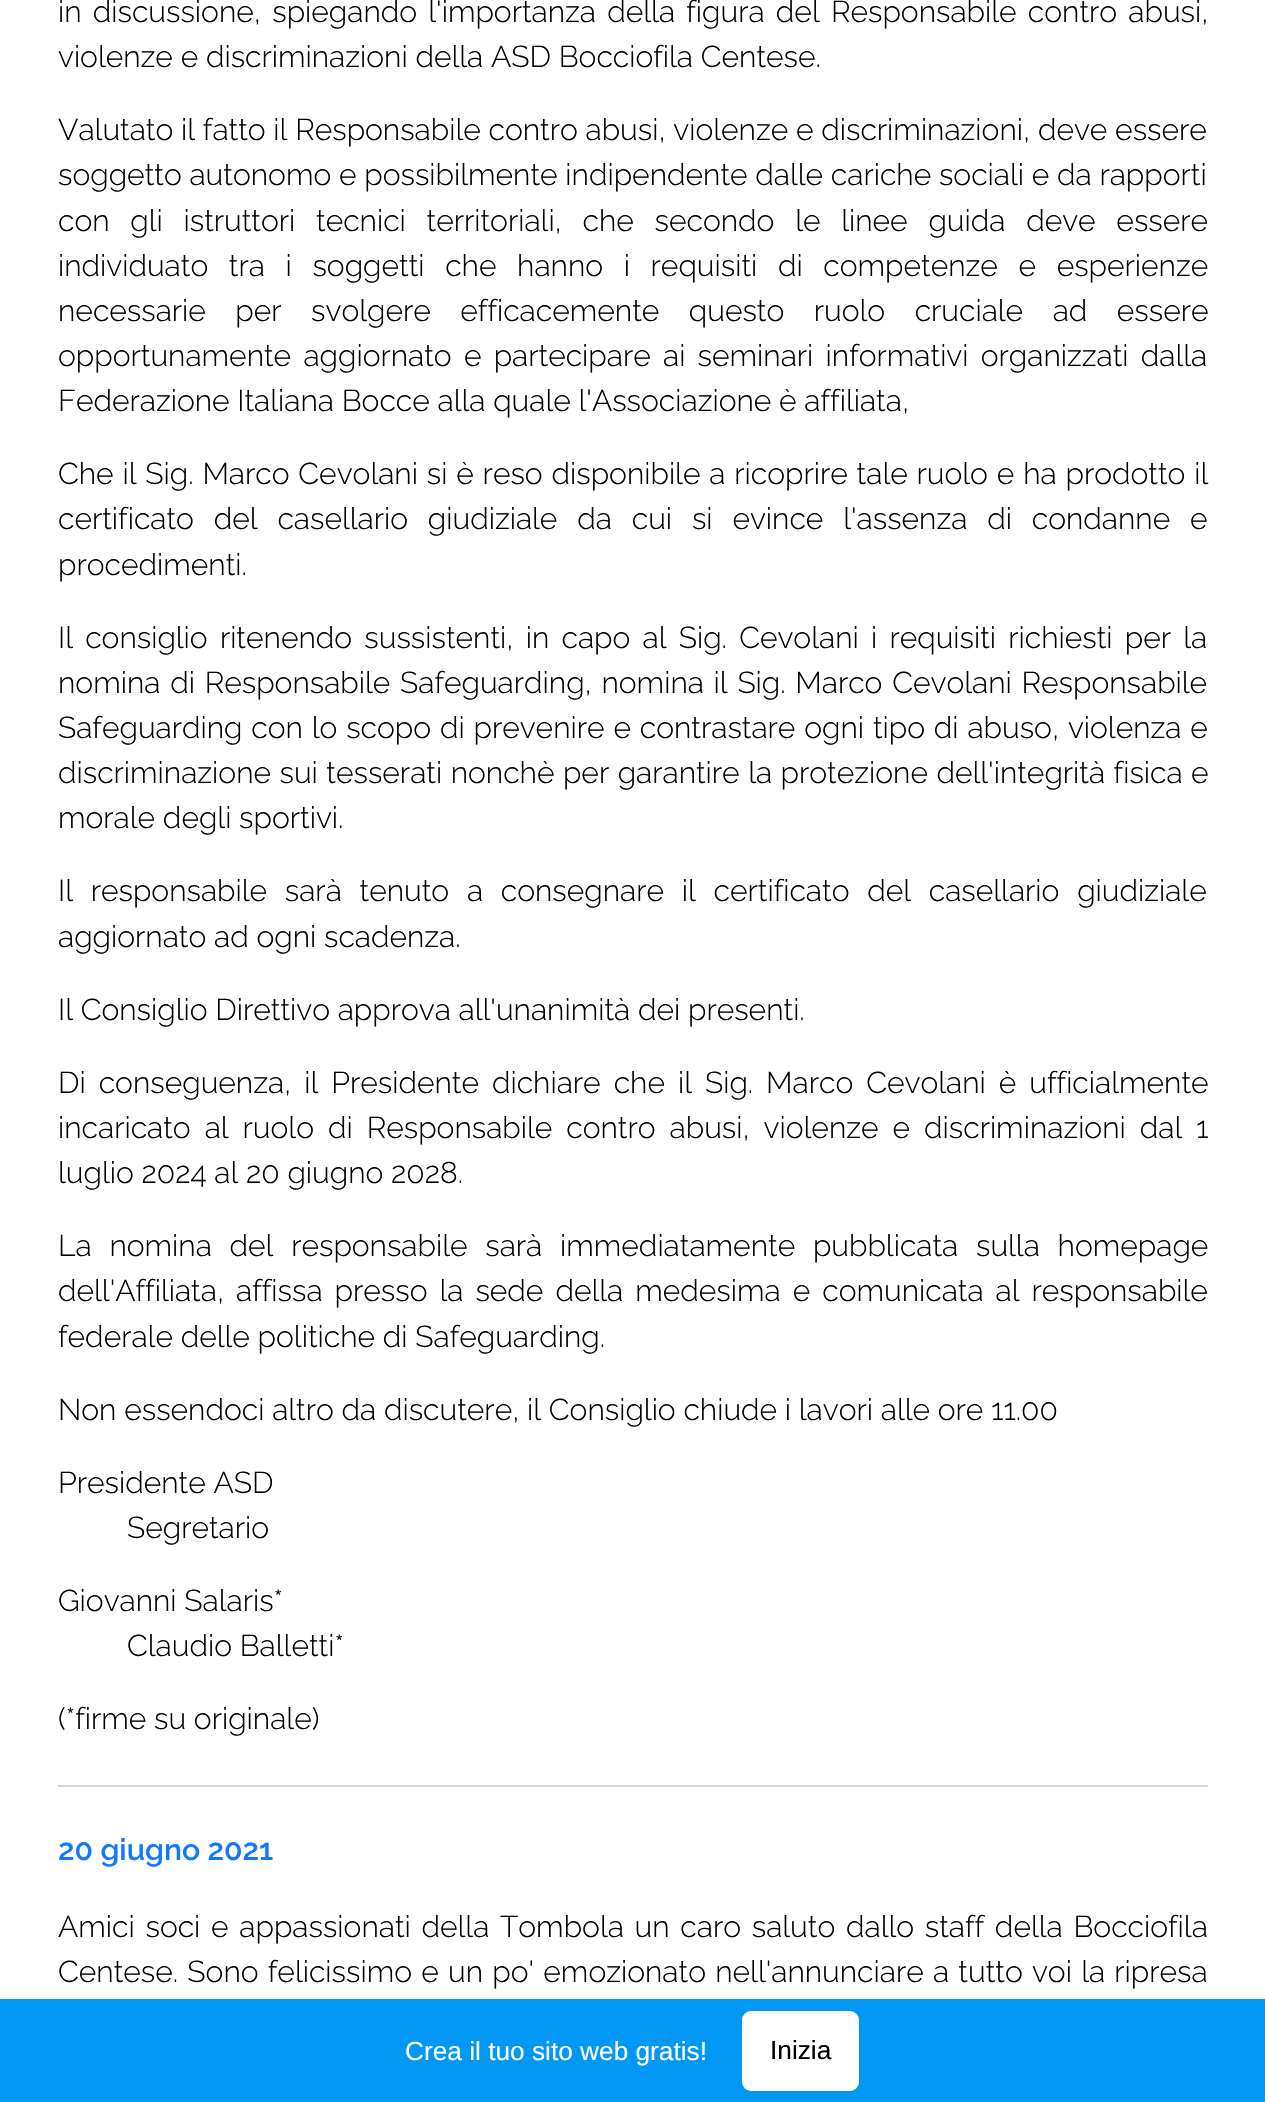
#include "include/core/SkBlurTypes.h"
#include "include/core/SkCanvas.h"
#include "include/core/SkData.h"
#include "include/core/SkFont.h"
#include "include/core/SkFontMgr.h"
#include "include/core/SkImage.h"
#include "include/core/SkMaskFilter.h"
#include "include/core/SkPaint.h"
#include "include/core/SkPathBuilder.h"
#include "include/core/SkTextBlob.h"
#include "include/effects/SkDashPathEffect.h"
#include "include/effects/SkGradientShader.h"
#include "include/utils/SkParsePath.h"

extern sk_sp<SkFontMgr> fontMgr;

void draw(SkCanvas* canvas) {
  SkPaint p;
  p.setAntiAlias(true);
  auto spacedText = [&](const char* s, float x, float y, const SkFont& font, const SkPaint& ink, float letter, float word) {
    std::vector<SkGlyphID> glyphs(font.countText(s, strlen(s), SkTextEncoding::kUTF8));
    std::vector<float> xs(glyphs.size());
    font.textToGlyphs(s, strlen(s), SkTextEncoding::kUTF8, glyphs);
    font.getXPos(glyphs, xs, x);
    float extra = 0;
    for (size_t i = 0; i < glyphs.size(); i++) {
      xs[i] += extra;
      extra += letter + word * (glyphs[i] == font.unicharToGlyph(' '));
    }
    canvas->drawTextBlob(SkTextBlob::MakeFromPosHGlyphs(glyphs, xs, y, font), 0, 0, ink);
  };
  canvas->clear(SK_ColorWHITE);
  p.setColor(SkColorSetRGB(212, 212, 212));
  canvas->drawRect(SkRect::MakeLTRB(58, 1785, 1208, 1787), p);
  p.setColor(SkColorSetRGB(0, 151, 245));
  canvas->drawRect(SkRect::MakeLTRB(0, 1999, 1265, 2102), p);
  p.setColor(SK_ColorWHITE);
  canvas->drawRoundRect(SkRect::MakeLTRB(742, 2011, 859, 2091), 9, 9, p);
  SkFont font1(fontMgr->matchFamilyStyle("Raleway", SkFontStyle(300, SkFontStyle::kNormal_Width, SkFontStyle::kUpright_Slant)), 30.1f);
  font1.setSubpixel(true);
  p.setColor(SK_ColorBLACK);
  spacedText("in discussione, spiegando l'importanza della figura del Responsabile contro abusi,", 58, 22, font1, p, 0, 3.5f);
  canvas->drawString("violenze e discriminazioni della ASD Bocciofila Centese.", 58, 67, font1, p);
  canvas->drawString("Valutato il fatto il Responsabile contro abusi, violenze e discriminazioni, deve essere", 58, 140, font1, p);
  canvas->drawString("soggetto autonomo e possibilmente indipendente dalle cariche sociali e da rapporti", 58, 185, font1, p);
  spacedText("con gli istruttori tecnici territoriali, che secondo le linee guida deve essere", 58, 231, font1, p, 0, 13);
  spacedText("individuato tra i soggetti che hanno i requisiti di competenze e esperienze", 58, 276, font1, p, 0, 12.9f);
  spacedText("necessarie per svolgere efficacemente questo ruolo cruciale ad essere", 58, 321, font1, p, 0, 21.75f);
  spacedText("opportunamente aggiornato e partecipare ai seminari informativi organizzati dalla", 58, 366, font1, p, 0, 4.5f);
  canvas->drawString("Federazione Italiana Bocce alla quale l'Associazione è affiliata,", 58, 411, font1, p);
  spacedText("Che il Sig. Marco Cevolani si è reso disponibile a ricoprire tale ruolo e ha prodotto il", 58, 484, font1, p, 0, 1.1f);
  spacedText("certificato del casellario giudiziale da cui si evince l'assenza di condanne e", 58, 529, font1, p, 0, 12.1f);
  canvas->drawString("procedimenti.", 58, 575, font1, p);
  spacedText("Il consiglio ritenendo sussistenti, in capo al Sig. Cevolani i requisiti richiesti per la", 58, 648, font1, p, 0, 4.5f);
  spacedText("nomina di Responsabile Safeguarding, nomina il Sig. Marco Cevolani Responsabile", 58, 693, font1, p, 0, 2);
  spacedText("Safeguarding con lo scopo di prevenire e contrastare ogni tipo di abuso, violenza e", 58, 738, font1, p, 0, 1.1f);
  spacedText("discriminazione sui tesserati nonchè per garantire la protezione dell'integrità fisica e", 58, 783, font1, p, 0, 0.75f);
  canvas->drawString("morale degli sportivi.", 58, 828, font1, p);
  spacedText("Il responsabile sarà tenuto a consegnare il certificato del casellario giudiziale", 58, 901, font1, p, 0, 10);
  canvas->drawString("aggiornato ad ogni scadenza.", 58, 947, font1, p);
  canvas->drawString("Il Consiglio Direttivo approva all'unanimità dei presenti.", 58, 1020, font1, p);
  spacedText("Di conseguenza, il Presidente dichiare che il Sig. Marco Cevolani è ufficialmente", 58, 1093, font1, p, 0, 5.25f);
  spacedText("incaricato al ruolo di Responsabile contro abusi, violenze e discriminazioni dal 1", 58, 1138, font1, p, 0, 6.25f);
  canvas->drawString("luglio 2024 al 20 giugno 2028.", 58, 1183, font1, p);
  spacedText("La nomina del responsabile sarà immediatamente pubblicata sulla homepage", 58, 1256, font1, p, 0, 10);
  spacedText("dell'Affiliata, affissa presso la sede della medesima e comunicata al responsabile", 58, 1301, font1, p, 0, 4.25f);
  canvas->drawString("federale delle politiche di Safeguarding.", 58, 1347, font1, p);
  canvas->drawString("Non essendoci altro da discutere, il Consiglio chiude i lavori alle ore 11.00", 58, 1420, font1, p);
  canvas->drawString("Presidente ASD", 58, 1493, font1, p);
  canvas->drawString("Segretario", 127, 1538, font1, p);
  canvas->drawString("Giovanni Salaris*", 58, 1611, font1, p);
  canvas->drawString("Claudio Balletti*", 127, 1656, font1, p);
  canvas->drawString("(*firme su originale)", 58, 1729, font1, p);
  SkFont font2(fontMgr->matchFamilyStyle("Raleway", SkFontStyle(600, SkFontStyle::kNormal_Width, SkFontStyle::kUpright_Slant)), 30.1f);
  font2.setSubpixel(true);
  p.setColor(SkColorSetRGB(18, 120, 255));
  canvas->drawString("20 giugno 2021", 58, 1860, font2, p);
  p.setColor(SK_ColorBLACK);
  spacedText("Amici soci e appassionati della Tombola un caro saluto dallo staff della Bocciofila", 58, 1937, font1, p, 0, 3);
  spacedText("Centese. Sono felicissimo e un po' emozionato nell'annunciare a tutto voi la ripresa", 58, 1982, font1, p, 0, 1.5f);
  SkFont font3(fontMgr->matchFamilyStyle("Liberation Sans", SkFontStyle::Normal()), 26.25f);
  font3.setSubpixel(true);
  p.setColor(SK_ColorWHITE);
  canvas->drawString("Crea il tuo sito web gratis!", 405, 2060, font3, p);
  p.setColor(SK_ColorBLACK);
  canvas->drawString("Inizia", 770, 2059, font3, p);
}
